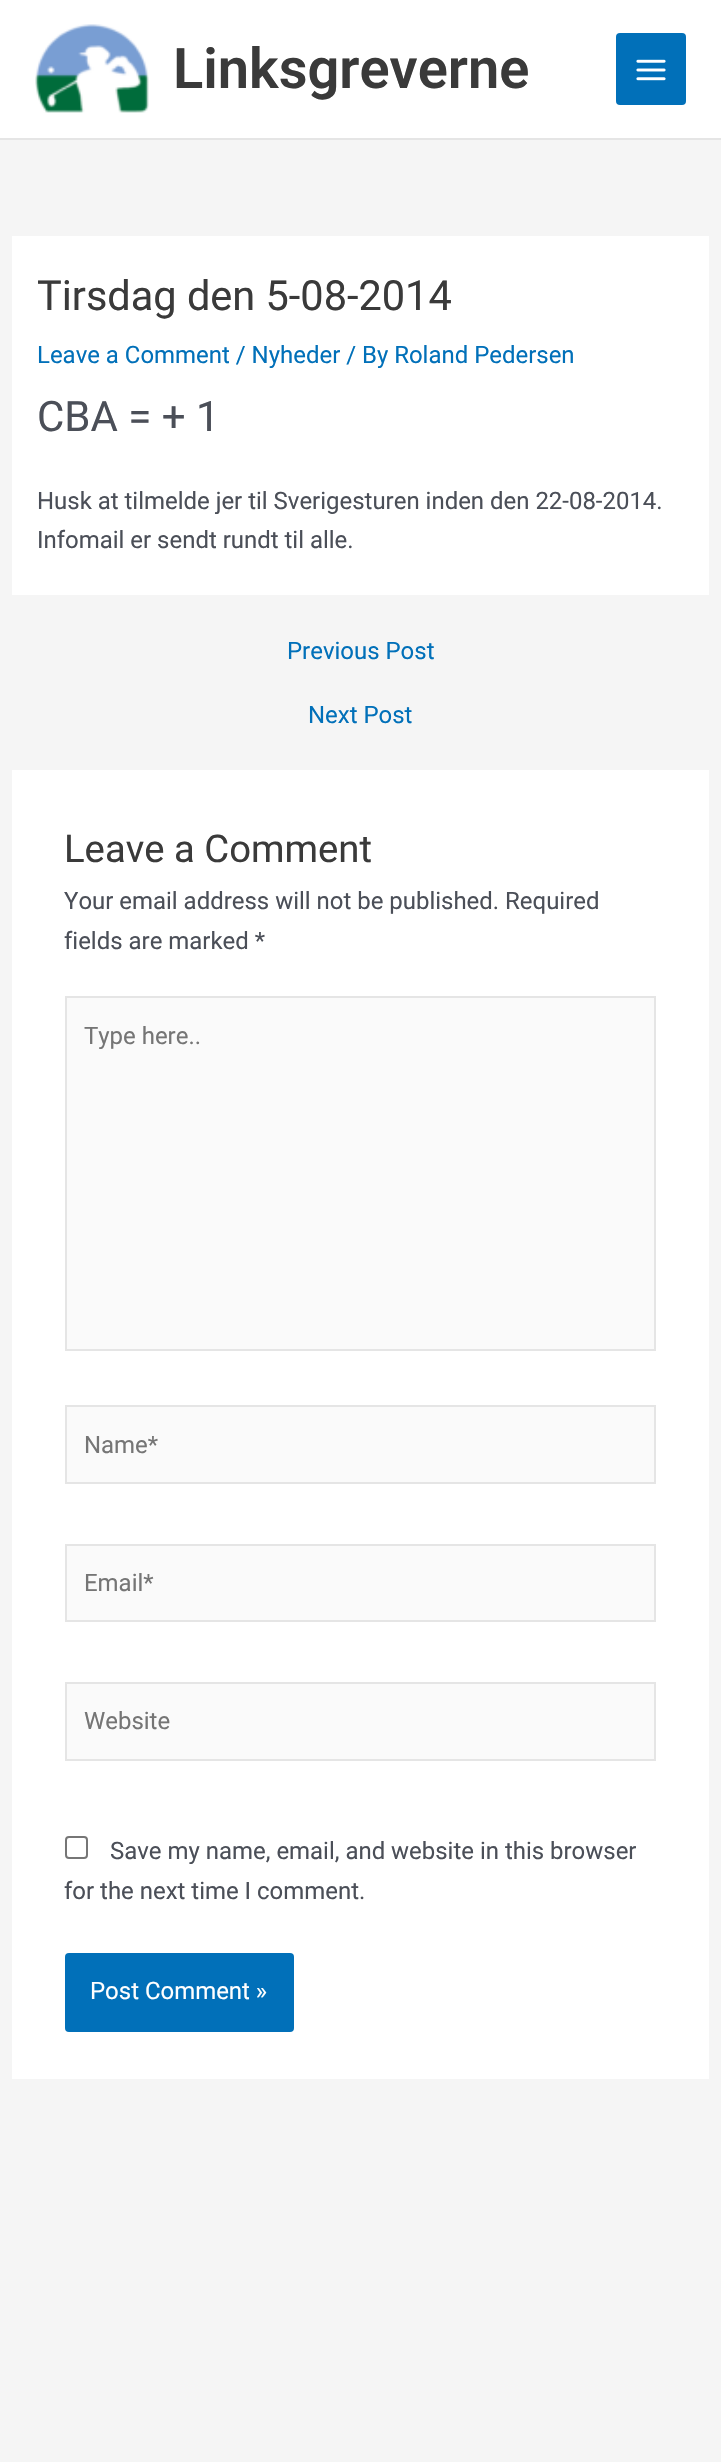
#include "include/core/SkBlurTypes.h"
#include "include/core/SkCanvas.h"
#include "include/core/SkData.h"
#include "include/core/SkFont.h"
#include "include/core/SkFontMgr.h"
#include "include/core/SkImage.h"
#include "include/core/SkMaskFilter.h"
#include "include/core/SkPaint.h"
#include "include/core/SkPathBuilder.h"
#include "include/core/SkTextBlob.h"
#include "include/effects/SkDashPathEffect.h"
#include "include/effects/SkGradientShader.h"
#include "include/utils/SkParsePath.h"

extern sk_sp<SkFontMgr> fontMgr;

void draw(SkCanvas* canvas) {
  SkPaint p;
  p.setAntiAlias(true);
  canvas->clear(SkColorSetRGB(245, 245, 245));
  p.setColor(SK_ColorWHITE);
  canvas->drawRect(SkRect::MakeLTRB(0, 0, 721, 138), p);
  p.setColor(SkColorSetRGB(229, 229, 229));
  canvas->drawRect(SkRect::MakeLTRB(0, 138, 721, 140), p);
  canvas->drawImageRect(SkImages::DeferredFromEncodedData(SkData::MakeFromFileName("images/1.png")), SkRect::MakeLTRB(35, 24, 149, 113), SkSamplingOptions());
  p.setColor(SkColorSetRGB(1, 112, 185));
  canvas->drawRoundRect(SkRect::MakeLTRB(616, 33, 686, 105), 4, 4, p);
  canvas->drawImageRect(SkImages::DeferredFromEncodedData(SkData::MakeFromFileName("images/2.png")), SkRect::MakeLTRB(636, 59, 666, 81), SkSamplingOptions());
  p.setColor(SK_ColorWHITE);
  canvas->drawRect(SkRect::MakeLTRB(12, 236, 709, 595), p);
  canvas->drawRect(SkRect::MakeLTRB(12, 770, 709, 2079), p);
  p.setColor(SkColorSetRGB(250, 250, 250));
  canvas->drawRect(SkRect::MakeLTRB(66, 997, 655, 1350), p);
  p.setStyle(SkPaint::kStroke_Style);
  p.setStrokeWidth(2);
  p.setColor(SkColorSetRGB(229, 229, 229));
  canvas->drawRect(SkRect::MakeLTRB(66, 997, 655, 1350), p);
  p.setStyle(SkPaint::kFill_Style);
  p.setColor(SkColorSetRGB(250, 250, 250));
  canvas->drawRect(SkRect::MakeLTRB(66, 1406, 655, 1483), p);
  p.setStyle(SkPaint::kStroke_Style);
  p.setColor(SkColorSetRGB(229, 229, 229));
  canvas->drawRect(SkRect::MakeLTRB(66, 1406, 655, 1483), p);
  p.setStyle(SkPaint::kFill_Style);
  p.setColor(SkColorSetRGB(250, 250, 250));
  canvas->drawRect(SkRect::MakeLTRB(66, 1545, 655, 1621), p);
  p.setStyle(SkPaint::kStroke_Style);
  p.setColor(SkColorSetRGB(229, 229, 229));
  canvas->drawRect(SkRect::MakeLTRB(66, 1545, 655, 1621), p);
  p.setStyle(SkPaint::kFill_Style);
  p.setColor(SkColorSetRGB(250, 250, 250));
  canvas->drawRect(SkRect::MakeLTRB(66, 1683, 655, 1760), p);
  p.setStyle(SkPaint::kStroke_Style);
  p.setColor(SkColorSetRGB(229, 229, 229));
  canvas->drawRect(SkRect::MakeLTRB(66, 1683, 655, 1760), p);
  p.setColor(SkColorSetRGB(118, 118, 118));
  canvas->drawRoundRect(SkRect::MakeLTRB(66, 1837, 87, 1858), 3, 3, p);
  p.setStyle(SkPaint::kFill_Style);
  p.setColor(SkColorSetRGB(1, 112, 185));
  canvas->drawRoundRect(SkRect::MakeLTRB(65, 1953, 294, 2032), 4, 4, p);
  SkFont font1(fontMgr->matchFamilyStyle("Roboto", SkFontStyle(600, SkFontStyle::kNormal_Width, SkFontStyle::kUpright_Slant)), 56);
  font1.setSubpixel(true);
  p.setColor(SkColorSetRGB(58, 58, 58));
  canvas->drawString("Linksgreverne", 173, 88, font1, p);
  SkFont font2(fontMgr->matchFamilyStyle("Roboto", SkFontStyle::Normal()), 41.5f);
  font2.setSubpixel(true);
  canvas->drawString("Tirsdag den 5-08-2014", 37, 310, font2, p);
  SkFont font3(fontMgr->matchFamilyStyle("Roboto", SkFontStyle::Normal()), 23.95f);
  font3.setSubpixel(true);
  p.setColor(SkColorSetRGB(1, 112, 185));
  canvas->drawString("Leave a Comment / Nyheder / By Roland Pedersen", 37, 363, font3, p);
  SkFont font4(fontMgr->matchFamilyStyle("Roboto", SkFontStyle::Normal()), 42);
  font4.setSubpixel(true);
  p.setColor(SkColorSetRGB(75, 79, 88));
  canvas->drawString("CBA = + 1", 37, 431, font4, p);
  canvas->drawString("Husk at tilmelde jer til Sverigesturen inden den 22-08-2014.", 37, 509, font3, p);
  canvas->drawString("Infomail er sendt rundt til alle.", 37, 548, font3, p);
  p.setColor(SkColorSetRGB(1, 112, 185));
  canvas->drawString("Previous Post", 287, 659, font3, p);
  canvas->drawString("Next Post", 308, 723, font3, p);
  SkFont font5(fontMgr->matchFamilyStyle("Roboto", SkFontStyle::Normal()), 38.25f);
  font5.setSubpixel(true);
  p.setColor(SkColorSetRGB(58, 58, 58));
  canvas->drawString("Leave a Comment", 64, 862, font5, p);
  p.setColor(SkColorSetRGB(75, 79, 88));
  canvas->drawString("Your email address will not be published. Required", 64, 909, font3, p);
  canvas->drawString("fields are marked *", 64, 949, font3, p);
  p.setColor(SkColorSetRGB(117, 117, 117));
  canvas->drawString("Type here..", 84, 1044, font3, p);
  canvas->drawString("Name*", 84, 1453, font3, p);
  canvas->drawString("Email*", 84, 1591, font3, p);
  canvas->drawString("Website", 84, 1729, font3, p);
  p.setColor(SkColorSetRGB(75, 79, 88));
  canvas->drawString("Save my name, email, and website in this browser", 110, 1859, font3, p);
  canvas->drawString("for the next time I comment.", 64, 1899, font3, p);
  p.setColor(SK_ColorWHITE);
  canvas->drawString("Post Comment »", 90, 1999, font3, p);
}
